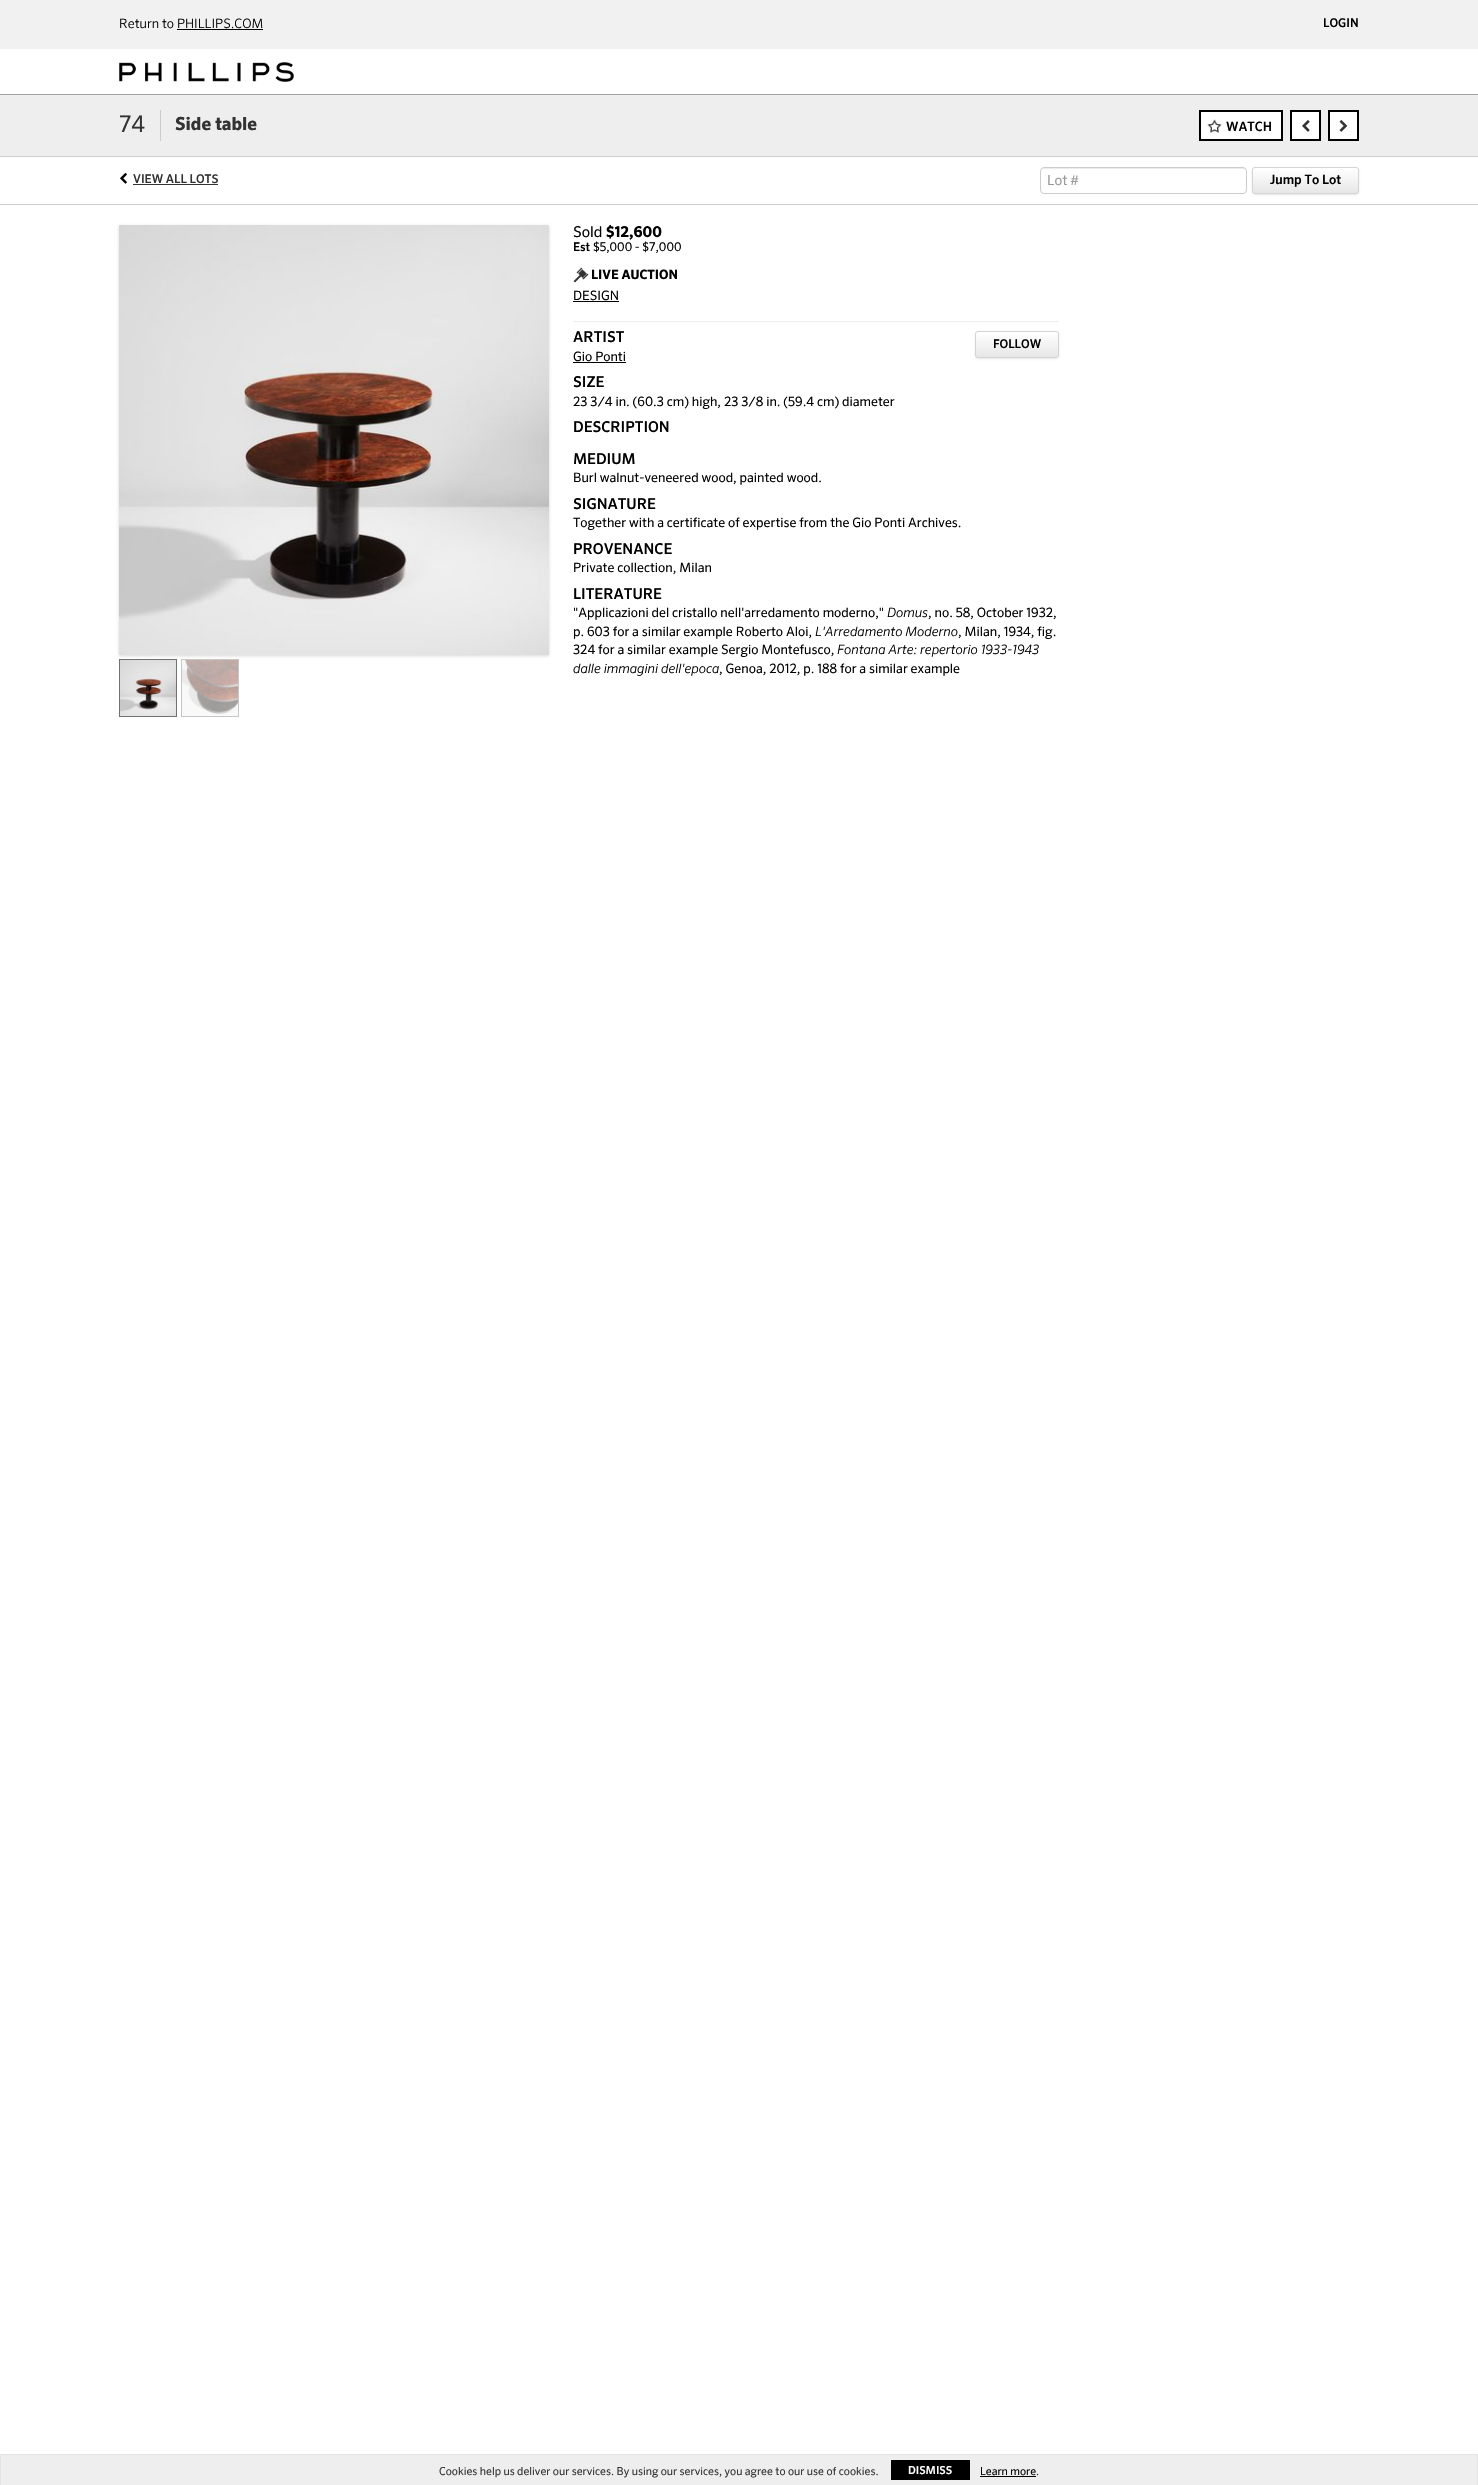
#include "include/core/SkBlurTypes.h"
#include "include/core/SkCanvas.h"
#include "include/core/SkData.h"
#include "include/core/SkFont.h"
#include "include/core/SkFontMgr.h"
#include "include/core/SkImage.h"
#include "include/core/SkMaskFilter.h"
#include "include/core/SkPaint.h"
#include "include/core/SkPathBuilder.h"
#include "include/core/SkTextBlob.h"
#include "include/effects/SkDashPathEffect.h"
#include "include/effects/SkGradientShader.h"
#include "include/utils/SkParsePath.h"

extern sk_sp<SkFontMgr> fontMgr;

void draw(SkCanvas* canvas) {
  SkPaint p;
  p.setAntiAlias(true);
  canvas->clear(SK_ColorWHITE);
  p.setColor(SkColorSetRGB(163, 163, 163));
  canvas->drawRect(SkRect::MakeLTRB(0, 94, 1478, 95), p);
  p.setColor(SkColorSetRGB(241, 241, 241));
  canvas->drawRect(SkRect::MakeLTRB(0, 0, 1478, 49), p);
  p.setColor(SK_ColorBLACK);
  canvas->drawRect(SkRect::MakeLTRB(177, 29, 263, 30), p);
  canvas->drawImageRect(SkImages::DeferredFromEncodedData(SkData::MakeFromFileName("images/1.png")), SkRect::MakeLTRB(119, 62, 294, 82), SkSamplingOptions());
  p.setColor(SkColorSetRGB(238, 238, 238));
  canvas->drawRect(SkRect::MakeLTRB(0, 95, 1478, 156), p);
  p.setColor(SkColorSetRGB(204, 204, 204));
  canvas->drawRect(SkRect::MakeLTRB(0, 156, 1478, 157), p);
  canvas->drawRect(SkRect::MakeLTRB(160, 110, 161, 141), p);
  p.setColor(SK_ColorWHITE);
  canvas->drawRect(SkRect::MakeLTRB(1200, 111, 1282, 140), p);
  p.setStyle(SkPaint::kStroke_Style);
  p.setStrokeWidth(2);
  p.setColor(SK_ColorBLACK);
  canvas->drawRect(SkRect::MakeLTRB(1200, 111, 1282, 140), p);
  canvas->drawImageRect(SkImages::DeferredFromEncodedData(SkData::MakeFromFileName("images/2.png")), SkRect::MakeLTRB(1207, 119, 1222, 133), SkSamplingOptions());
  p.setStyle(SkPaint::kFill_Style);
  p.setColor(SK_ColorWHITE);
  canvas->drawRect(SkRect::MakeLTRB(1291, 111, 1320, 140), p);
  p.setStyle(SkPaint::kStroke_Style);
  p.setColor(SK_ColorBLACK);
  canvas->drawRect(SkRect::MakeLTRB(1291, 111, 1320, 140), p);
  canvas->drawImageRect(SkImages::DeferredFromEncodedData(SkData::MakeFromFileName("images/3.png")), SkRect::MakeLTRB(1302, 120, 1310, 132), SkSamplingOptions());
  p.setStyle(SkPaint::kFill_Style);
  p.setColor(SK_ColorWHITE);
  canvas->drawRect(SkRect::MakeLTRB(1329, 111, 1358, 140), p);
  p.setStyle(SkPaint::kStroke_Style);
  p.setColor(SK_ColorBLACK);
  canvas->drawRect(SkRect::MakeLTRB(1329, 111, 1358, 140), p);
  canvas->drawImageRect(SkImages::DeferredFromEncodedData(SkData::MakeFromFileName("images/4.png")), SkRect::MakeLTRB(1339, 120, 1348, 132), SkSamplingOptions());
  canvas->drawImageRect(SkImages::DeferredFromEncodedData(SkData::MakeFromFileName("images/5.png")), SkRect::MakeLTRB(120, 172, 127, 184), SkSamplingOptions());
  p.setStyle(SkPaint::kFill_Style);
  p.setColor(SkColorSetRGB(51, 51, 51));
  canvas->drawRect(SkRect::MakeLTRB(133, 184, 218, 185), p);
  p.setColor(SkColorSetRGB(236, 236, 236));
  canvas->drawPath(SkPathBuilder().moveTo(1044, 169).lineTo(1243, 169).cubicTo(1245, 169, 1246, 170, 1246, 172).cubicTo(1246, 170, 1245, 168, 1243, 168).lineTo(1044, 168).cubicTo(1042, 168, 1041, 170, 1041, 172).cubicTo(1041, 170, 1042, 169, 1044, 169).close().detach(), p);
  p.setStyle(SkPaint::kStroke_Style);
  p.setStrokeWidth(1);
  p.setColor(SkColorSetRGB(204, 204, 204));
  canvas->drawRoundRect(SkRect::MakeLTRB(1040.5f, 167.5f, 1246.5f, 193.5f), 3.5f, 3.5f, p);
  p.setStyle(SkPaint::kFill_Style);
  p.setColor(SkColorSetARGB(51, 0, 0, 0));
  p.setMaskFilter(SkMaskFilter::MakeBlur(kNormal_SkBlurStyle, 1.5f));
  canvas->drawRoundRect(SkRect::MakeLTRB(1253, 169, 1358, 194), 2, 2, p);
  p.setMaskFilter(nullptr);
  canvas->save();
  canvas->clipPath(SkPathBuilder().moveTo(1255, 167).lineTo(1356, 167).cubicTo(1357.5f, 167, 1359, 168.5f, 1359, 170).lineTo(1359, 191).cubicTo(1359, 192.5f, 1357.5f, 194, 1356, 194).lineTo(1255, 194).cubicTo(1253.5f, 194, 1252, 192.5f, 1252, 191).lineTo(1252, 170).cubicTo(1252, 168.5f, 1253.5f, 167, 1255, 167).close().detach(), true);
  {
    const SkColor colors[] = {SK_ColorWHITE, SkColorSetRGB(230, 230, 230)};
    const float stops[] = {0, 1};
    const SkPoint ends[] = {{1306, 168}, {1306, 193}};
    p.setShader(SkGradientShader::MakeLinear(ends, colors, stops, 2, SkTileMode::kClamp));
    p.setAlpha(255);
  }
  canvas->drawRect(SkRect::MakeLTRB(1252, 168, 1359, 193), p);
  canvas->restore();
  p.setStyle(SkPaint::kStroke_Style);
  p.setShader(nullptr);
  p.setColor(SkColorSetRGB(212, 212, 212));
  canvas->drawRoundRect(SkRect::MakeLTRB(1252.5f, 167.5f, 1358.5f, 193.5f), 2.5f, 2.5f, p);
  p.setStyle(SkPaint::kFill_Style);
  p.setColor(SkColorSetRGB(204, 204, 204));
  canvas->drawRect(SkRect::MakeLTRB(0, 204, 1478, 205), p);
  p.setColor(SkColorSetRGB(218, 217, 215));
  p.setMaskFilter(SkMaskFilter::MakeBlur(kNormal_SkBlurStyle, 1.5f));
  canvas->drawRect(SkRect::MakeLTRB(119, 226, 549, 656), p);
  p.setMaskFilter(nullptr);
  canvas->drawImageRect(SkImages::DeferredFromEncodedData(SkData::MakeFromFileName("images/6.png")), SkRect::MakeLTRB(119, 225, 549, 655), SkSamplingOptions());
  p.setStyle(SkPaint::kStroke_Style);
  p.setColor(SkColorSetRGB(113, 113, 113));
  canvas->drawRect(SkRect::MakeLTRB(119.5f, 659.5f, 176.5f, 716.5f), p);
  p.setColor(SkColorSetRGB(198, 198, 198));
  canvas->drawRect(SkRect::MakeLTRB(181.5f, 659.5f, 238.5f, 716.5f), p);
  canvas->drawImageRect(SkImages::DeferredFromEncodedData(SkData::MakeFromFileName("images/7.png")), SkRect::MakeLTRB(120, 660, 176, 716), SkSamplingOptions());
  canvas->drawImageRect(SkImages::DeferredFromEncodedData(SkData::MakeFromFileName("images/8.png")), SkRect::MakeLTRB(182, 660, 238, 716), SkSamplingOptions());
  canvas->drawImageRect(SkImages::DeferredFromEncodedData(SkData::MakeFromFileName("images/9.png")), SkRect::MakeLTRB(573, 267, 589, 283), SkSamplingOptions());
  p.setStyle(SkPaint::kFill_Style);
  p.setColor(SK_ColorBLACK);
  canvas->drawRect(SkRect::MakeLTRB(573, 301, 619, 302), p);
  p.setColor(SkColorSetRGB(238, 238, 238));
  canvas->drawRect(SkRect::MakeLTRB(573, 321, 1059, 322), p);
  p.setColor(SkColorSetARGB(51, 0, 0, 0));
  p.setMaskFilter(SkMaskFilter::MakeBlur(kNormal_SkBlurStyle, 1.5f));
  canvas->drawRoundRect(SkRect::MakeLTRB(976, 333, 1058, 358), 2, 2, p);
  p.setMaskFilter(nullptr);
  canvas->save();
  canvas->clipPath(SkPathBuilder().moveTo(978, 331).lineTo(1056, 331).cubicTo(1057.5f, 331, 1059, 332.5f, 1059, 334).lineTo(1059, 355).cubicTo(1059, 356.5f, 1057.5f, 358, 1056, 358).lineTo(978, 358).cubicTo(976.5f, 358, 975, 356.5f, 975, 355).lineTo(975, 334).cubicTo(975, 332.5f, 976.5f, 331, 978, 331).close().detach(), true);
  {
    const SkColor colors[] = {SK_ColorWHITE, SkColorSetRGB(230, 230, 230)};
    const float stops[] = {0, 1};
    const SkPoint ends[] = {{1017, 332}, {1017, 357}};
    p.setShader(SkGradientShader::MakeLinear(ends, colors, stops, 2, SkTileMode::kClamp));
    p.setAlpha(255);
  }
  canvas->drawRect(SkRect::MakeLTRB(975, 332, 1059, 357), p);
  canvas->restore();
  p.setShader(nullptr);
  p.setColor(SkColorSetARGB(102, 255, 255, 255));
  canvas->drawPath(SkPathBuilder().moveTo(978, 333).lineTo(1056, 333).cubicTo(1057, 333, 1058, 334, 1058, 335).cubicTo(1058, 328, 1046, 332, 1043, 332).lineTo(991, 332).cubicTo(988, 332, 976, 328, 976, 335).cubicTo(976, 334, 977, 333, 978, 333).close().detach(), p);
  p.setStyle(SkPaint::kStroke_Style);
  p.setColor(SkColorSetRGB(212, 212, 212));
  canvas->drawRoundRect(SkRect::MakeLTRB(975.5f, 331.5f, 1058.5f, 357.5f), 2.5f, 2.5f, p);
  p.setStyle(SkPaint::kFill_Style);
  p.setColor(SK_ColorBLACK);
  canvas->drawRect(SkRect::MakeLTRB(573, 362, 626, 363), p);
  p.setColor(SkColorSetRGB(238, 238, 238));
  canvas->drawRect(SkRect::MakeLTRB(1, 2455, 1477, 2485), p);
  p.setColor(SkColorSetRGB(228, 228, 228));
  canvas->drawRect(SkRect::MakeLTRB(0, 2454, 1478, 2455), p);
  canvas->drawRect(SkRect::MakeLTRB(1477, 2454, 1478, 2485), p);
  canvas->drawRect(SkRect::MakeLTRB(0, 2454, 1, 2485), p);
  p.setColor(SK_ColorBLACK);
  canvas->drawRect(SkRect::MakeLTRB(891, 2460, 970, 2480), p);
  canvas->drawRect(SkRect::MakeLTRB(980, 2476, 1036, 2477), p);
  SkFont font1(fontMgr->matchFamilyStyle("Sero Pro", SkFontStyle(300, SkFontStyle::kNormal_Width, SkFontStyle::kUpright_Slant)), 13);
  font1.setSubpixel(true);
  canvas->drawString("Return to PHILLIPS.COM", 119, 28, font1, p);
  SkFont font2(fontMgr->matchFamilyStyle("Sero Pro", SkFontStyle(500, SkFontStyle::kNormal_Width, SkFontStyle::kUpright_Slant)), 12);
  font2.setSubpixel(true);
  canvas->drawString("LOGIN", 1323, 27, font2, p);
  SkFont font3(fontMgr->matchFamilyStyle("Sero Pro", SkFontStyle::Normal()), 23);
  font3.setSubpixel(true);
  p.setColor(SkColorSetRGB(51, 51, 51));
  canvas->drawString("74", 119, 132, font3, p);
  SkFont font4(fontMgr->matchFamilyStyle("Sero Pro", SkFontStyle::Bold()), 18);
  font4.setSubpixel(true);
  canvas->drawString("Side table", 175, 130, font4, p);
  SkFont font5(fontMgr->matchFamilyStyle("Sero Pro", SkFontStyle(500, SkFontStyle::kNormal_Width, SkFontStyle::kUpright_Slant)), 13);
  font5.setSubpixel(true);
  p.setColor(SK_ColorBLACK);
  canvas->drawString("WATCH", 1226, 131, font5, p);
  p.setColor(SkColorSetRGB(51, 51, 51));
  canvas->drawString("VIEW ALL LOTS", 133, 183, font2, p);
  SkFont font6(fontMgr->matchFamilyStyle("Sero Pro", SkFontStyle::Normal()), 14);
  font6.setSubpixel(true);
  p.setColor(SkColorSetRGB(153, 153, 153));
  canvas->drawString("Lot #", 1047, 185, font6, p);
  p.setColor(SK_ColorBLACK);
  canvas->drawString("Jump To Lot", 1270, 184, font5, p);
  SkFont font7(fontMgr->matchFamilyStyle("Sero Pro", SkFontStyle::Normal()), 15);
  font7.setSubpixel(true);
  canvas->drawString("Sold", 573, 237, font7, p);
  SkFont font8(fontMgr->matchFamilyStyle("Sero Pro", SkFontStyle::Bold()), 15);
  font8.setSubpixel(true);
  canvas->drawString("$12,600", 606, 237, font8, p);
  canvas->drawString("Est", 573, 251, font2, p);
  SkFont font9(fontMgr->matchFamilyStyle("Sero Pro", SkFontStyle::Normal()), 12);
  font9.setSubpixel(true);
  canvas->drawString("$5,000 - $7,000", 593, 251, font9, p);
  SkFont font10(fontMgr->matchFamilyStyle("Sero Pro", SkFontStyle::Bold()), 13);
  font10.setSubpixel(true);
  canvas->drawString("LIVE AUCTION", 591, 279, font10, p);
  SkFont font11(fontMgr->matchFamilyStyle("Sero Pro", SkFontStyle::Normal()), 13);
  font11.setSubpixel(true);
  canvas->drawString("DESIGN", 573, 300, font11, p);
  SkFont font12(fontMgr->matchFamilyStyle("Sero Pro", SkFontStyle(500, SkFontStyle::kNormal_Width, SkFontStyle::kUpright_Slant)), 15);
  font12.setSubpixel(true);
  canvas->drawString("ARTIST", 573, 342, font12, p);
  canvas->drawString("FOLLOW", 993, 348, font2, p);
  canvas->drawString("Gio Ponti", 573, 361, font11, p);
  canvas->drawString("SIZE", 573, 387, font12, p);
  canvas->drawString("23 3/4 in. (60.3 cm) high, 23 3/8 in. (59.4 cm) diameter", 573, 406, font11, p);
  canvas->drawString("DESCRIPTION", 573, 432, font12, p);
  canvas->drawString("MEDIUM", 573, 464, font12, p);
  canvas->drawString("Burl walnut-veneered wood, painted wood.", 573, 482, font11, p);
  canvas->drawString("SIGNATURE", 573, 509, font12, p);
  canvas->drawString("Together with a certificate of expertise from the Gio Ponti Archives.", 573, 527, font11, p);
  canvas->drawString("PROVENANCE", 573, 554, font12, p);
  canvas->drawString("Private collection, Milan", 573, 572, font11, p);
  canvas->drawString("LITERATURE", 573, 599, font12, p);
  canvas->drawString("\"Applicazioni del cristallo nell'arredamento moderno,\"", 573, 617, font11, p);
  SkFont font13(fontMgr->matchFamilyStyle("Sero Pro", SkFontStyle(300, SkFontStyle::kNormal_Width, SkFontStyle::kItalic_Slant)), 13);
  font13.setSubpixel(true);
  canvas->drawString("Domus", 887, 617, font13, p);
  canvas->drawString(", no. 58, October 1932,", 928, 617, font11, p);
  canvas->drawString("p. 603 for a similar example Roberto Aloi,", 573, 636, font11, p);
  canvas->drawString("L'Arredamento Moderno", 815, 636, font13, p);
  canvas->drawString(", Milan, 1934, fig.", 958, 636, font11, p);
  canvas->drawString("324 for a similar example Sergio Montefusco,", 573, 654, font11, p);
  canvas->drawString("Fontana Arte: repertorio 1933-1943", 837, 654, font13, p);
  canvas->drawString("dalle immagini dell'epoca", 573, 673, font13, p);
  canvas->drawString(", Genoa, 2012, p. 188 for a similar example", 719, 673, font11, p);
  SkFont font14(fontMgr->matchFamilyStyle("Sero Pro", SkFontStyle::Normal()), 11);
  font14.setSubpixel(true);
  p.setColor(SkColorSetRGB(51, 51, 51));
  canvas->drawString("Cookies help us deliver our services. By using our services, you agree to our use of cookies.", 439, 2475, font14, p);
  SkFont font15(fontMgr->matchFamilyStyle("Sero Pro", SkFontStyle(500, SkFontStyle::kNormal_Width, SkFontStyle::kUpright_Slant)), 11);
  font15.setSubpixel(true);
  p.setColor(SK_ColorWHITE);
  canvas->drawString("DISMISS", 908, 2474, font15, p);
  p.setColor(SK_ColorBLACK);
  canvas->drawString("Learn more", 980, 2475, font14, p);
  p.setColor(SkColorSetRGB(51, 51, 51));
  canvas->drawString(".", 1036, 2475, font14, p);
}
